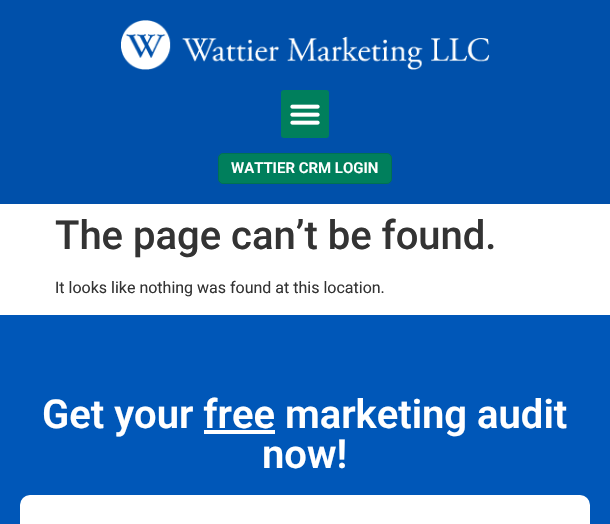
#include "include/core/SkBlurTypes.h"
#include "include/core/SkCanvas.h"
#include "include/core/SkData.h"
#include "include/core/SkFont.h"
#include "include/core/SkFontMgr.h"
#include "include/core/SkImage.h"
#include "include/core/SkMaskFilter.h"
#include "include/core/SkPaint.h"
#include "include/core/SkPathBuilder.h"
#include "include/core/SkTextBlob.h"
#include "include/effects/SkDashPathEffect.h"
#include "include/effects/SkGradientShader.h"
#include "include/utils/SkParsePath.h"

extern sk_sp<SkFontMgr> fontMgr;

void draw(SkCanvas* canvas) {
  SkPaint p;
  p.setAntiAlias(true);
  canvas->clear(SK_ColorWHITE);
  p.setColor(SkColorSetRGB(0, 80, 170));
  canvas->drawRect(SkRect::MakeLTRB(0, 0, 610, 204), p);
  canvas->drawImageRect(SkImages::DeferredFromEncodedData(SkData::MakeFromFileName("images/1.png")), SkRect::MakeLTRB(121, 20, 490, 70), SkSamplingOptions());
  p.setColor(SkColorSetRGB(0, 127, 92));
  canvas->drawRoundRect(SkRect::MakeLTRB(281, 90, 329, 138), 3, 3, p);
  canvas->drawImageRect(SkImages::DeferredFromEncodedData(SkData::MakeFromFileName("images/2.png")), SkRect::MakeLTRB(290, 104, 320, 125), SkSamplingOptions());
  canvas->drawRoundRect(SkRect::MakeLTRB(218.5f, 153.5f, 391.5f, 183.5f), 4.5f, 4.5f, p);
  p.setStyle(SkPaint::kStroke_Style);
  p.setStrokeWidth(1);
  p.setColor(SkColorSetRGB(0, 113, 82));
  canvas->drawRoundRect(SkRect::MakeLTRB(218.5f, 153.5f, 391.5f, 183.5f), 4.5f, 4.5f, p);
  p.setStyle(SkPaint::kFill_Style);
  p.setColor(SkColorSetRGB(0, 87, 184));
  canvas->drawRect(SkRect::MakeLTRB(0, 315, 610, 524), p);
  p.setColor(SK_ColorWHITE);
  canvas->drawRect(SkRect::MakeLTRB(204, 430, 275, 434), p);
  canvas->drawImageRect(SkImages::DeferredFromEncodedData(SkData::MakeFromFileName("images/3.png")), SkRect::MakeLTRB(20, 495, 590, 524), SkSamplingOptions());
  SkFont font1(fontMgr->matchFamilyStyle("Roboto", SkFontStyle(600, SkFontStyle::kNormal_Width, SkFontStyle::kUpright_Slant)), 15);
  font1.setSubpixel(true);
  canvas->drawString("WATTIER CRM LOGIN", 231, 173, font1, p);
  SkFont font2(fontMgr->matchFamilyStyle("Roboto", SkFontStyle(500, SkFontStyle::kNormal_Width, SkFontStyle::kUpright_Slant)), 40);
  font2.setSubpixel(true);
  p.setColor(SkColorSetRGB(51, 51, 51));
  canvas->drawString("The page can’t be found.", 55, 249, font2, p);
  SkFont font3(fontMgr->matchFamilyStyle("Roboto", SkFontStyle::Normal()), 16);
  font3.setSubpixel(true);
  canvas->drawString("It looks like nothing was found at this location.", 55, 293, font3, p);
  SkFont font4(fontMgr->matchFamilyStyle("Roboto", SkFontStyle(600, SkFontStyle::kNormal_Width, SkFontStyle::kUpright_Slant)), 40);
  font4.setSubpixel(true);
  p.setColor(SK_ColorWHITE);
  canvas->drawString("Get your free marketing audit", 42, 428, font4, p);
  canvas->drawString("now!", 262, 468, font4, p);
}
